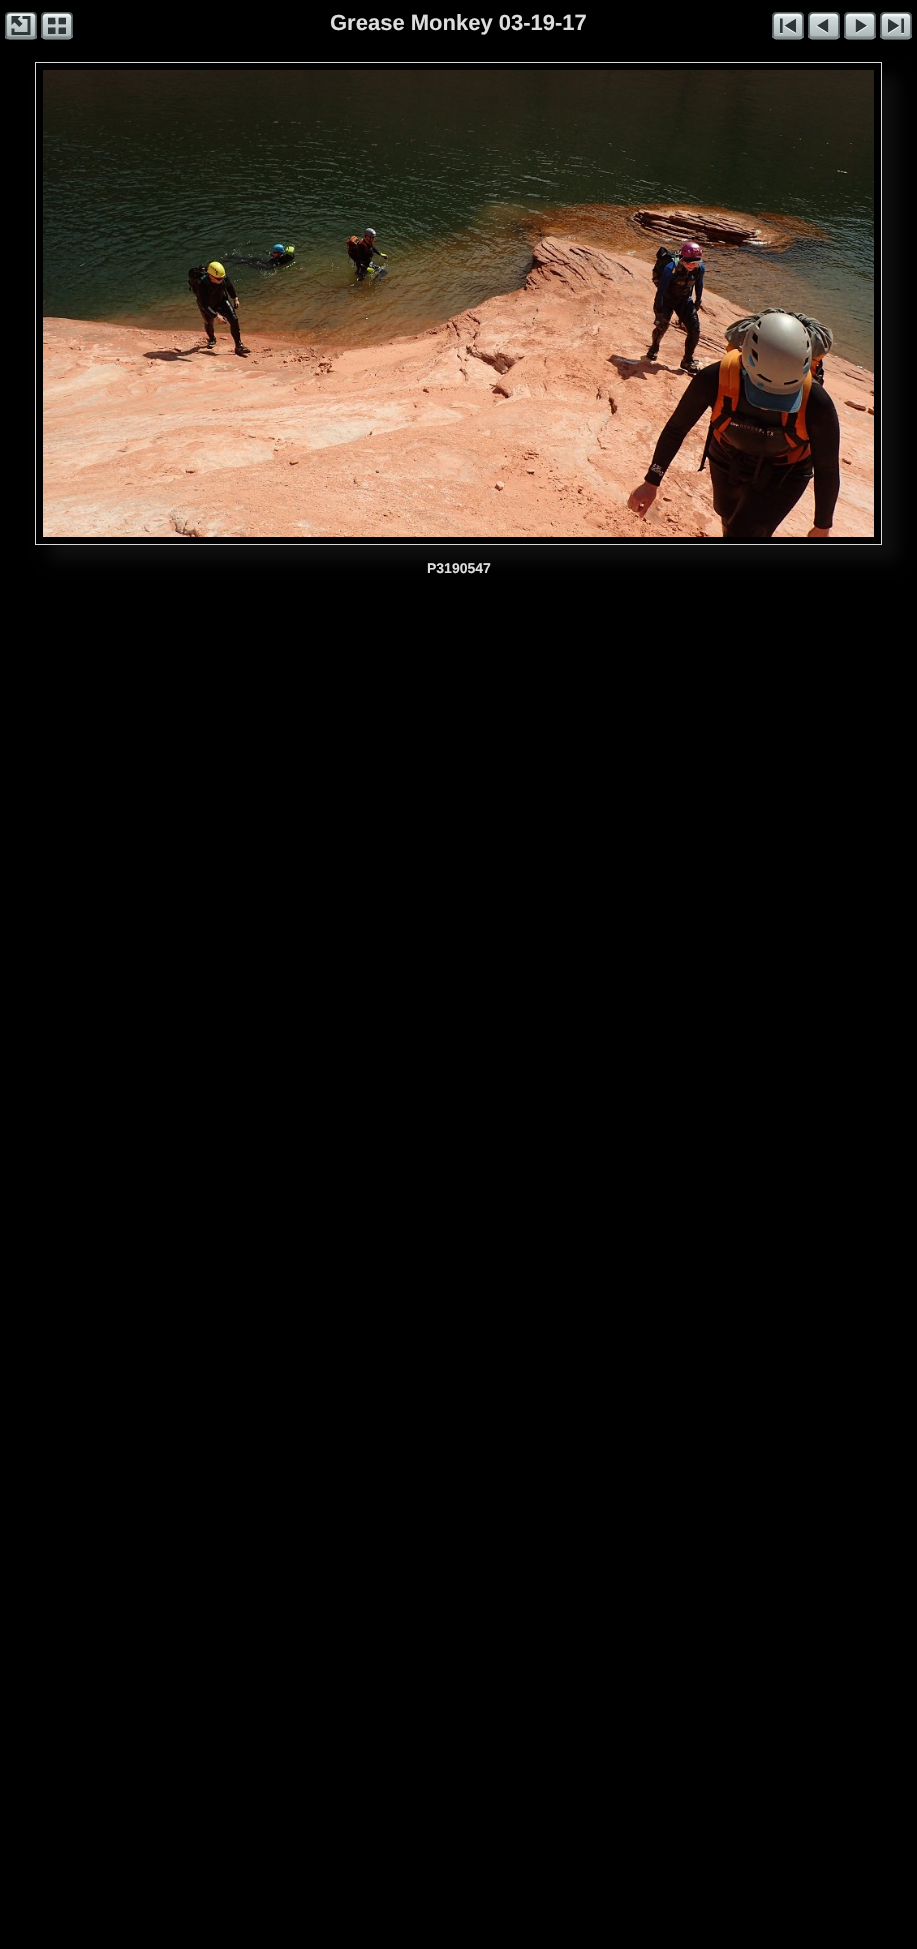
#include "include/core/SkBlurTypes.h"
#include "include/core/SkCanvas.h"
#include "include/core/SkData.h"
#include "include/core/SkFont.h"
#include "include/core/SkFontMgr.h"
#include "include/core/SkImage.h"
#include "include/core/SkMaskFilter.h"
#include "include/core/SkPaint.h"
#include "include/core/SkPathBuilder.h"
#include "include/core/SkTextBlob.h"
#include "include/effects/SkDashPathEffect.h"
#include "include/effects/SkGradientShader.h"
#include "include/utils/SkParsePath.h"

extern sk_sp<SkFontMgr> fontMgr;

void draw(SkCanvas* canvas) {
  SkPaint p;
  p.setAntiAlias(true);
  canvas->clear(SK_ColorBLACK);
  canvas->drawImageRect(SkImages::DeferredFromEncodedData(SkData::MakeFromFileName("images/1.png")), SkRect::MakeLTRB(5, 12, 37, 40), SkSamplingOptions());
  canvas->drawImageRect(SkImages::DeferredFromEncodedData(SkData::MakeFromFileName("images/2.png")), SkRect::MakeLTRB(41, 12, 73, 40), SkSamplingOptions());
  canvas->drawImageRect(SkImages::DeferredFromEncodedData(SkData::MakeFromFileName("images/3.png")), SkRect::MakeLTRB(772, 12, 804, 40), SkSamplingOptions());
  canvas->drawImageRect(SkImages::DeferredFromEncodedData(SkData::MakeFromFileName("images/4.png")), SkRect::MakeLTRB(808, 12, 840, 40), SkSamplingOptions());
  canvas->drawImageRect(SkImages::DeferredFromEncodedData(SkData::MakeFromFileName("images/5.png")), SkRect::MakeLTRB(844, 12, 876, 40), SkSamplingOptions());
  canvas->drawImageRect(SkImages::DeferredFromEncodedData(SkData::MakeFromFileName("images/6.png")), SkRect::MakeLTRB(880, 12, 912, 40), SkSamplingOptions());
  canvas->save();
  canvas->clipPath(SkPathBuilder(SkPathFillType::kEvenOdd).moveTo(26, 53).lineTo(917, 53).lineTo(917, 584).lineTo(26, 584).close().moveTo(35, 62).lineTo(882, 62).lineTo(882, 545).lineTo(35, 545).close().detach(), true);
  p.setColor(SkColorSetARGB(77, 51, 51, 51));
  p.setMaskFilter(SkMaskFilter::MakeBlur(kNormal_SkBlurStyle, 7.5f));
  canvas->drawRect(SkRect::MakeLTRB(50, 77, 897, 560), p);
  p.setMaskFilter(nullptr);
  canvas->restore();
  p.setStyle(SkPaint::kStroke_Style);
  p.setStrokeWidth(1);
  p.setColor(SkColorSetRGB(221, 221, 221));
  canvas->drawRect(SkRect::MakeLTRB(35.5f, 62.5f, 881.5f, 544.5f), p);
  canvas->drawImageRect(SkImages::DeferredFromEncodedData(SkData::MakeFromFileName("images/7.png")), SkRect::MakeLTRB(43, 70, 874, 537), SkSamplingOptions());
  SkFont font1(fontMgr->matchFamilyStyle("Liberation Sans", SkFontStyle::Bold()), 22);
  font1.setSubpixel(true);
  p.setStyle(SkPaint::kFill_Style);
  canvas->drawString("Grease Monkey 03-19-17", 330, 30, font1, p);
  SkFont font2(fontMgr->matchFamilyStyle("Liberation Sans", SkFontStyle::Bold()), 14);
  font2.setSubpixel(true);
  canvas->drawString("P3190547", 427, 573, font2, p);
}
